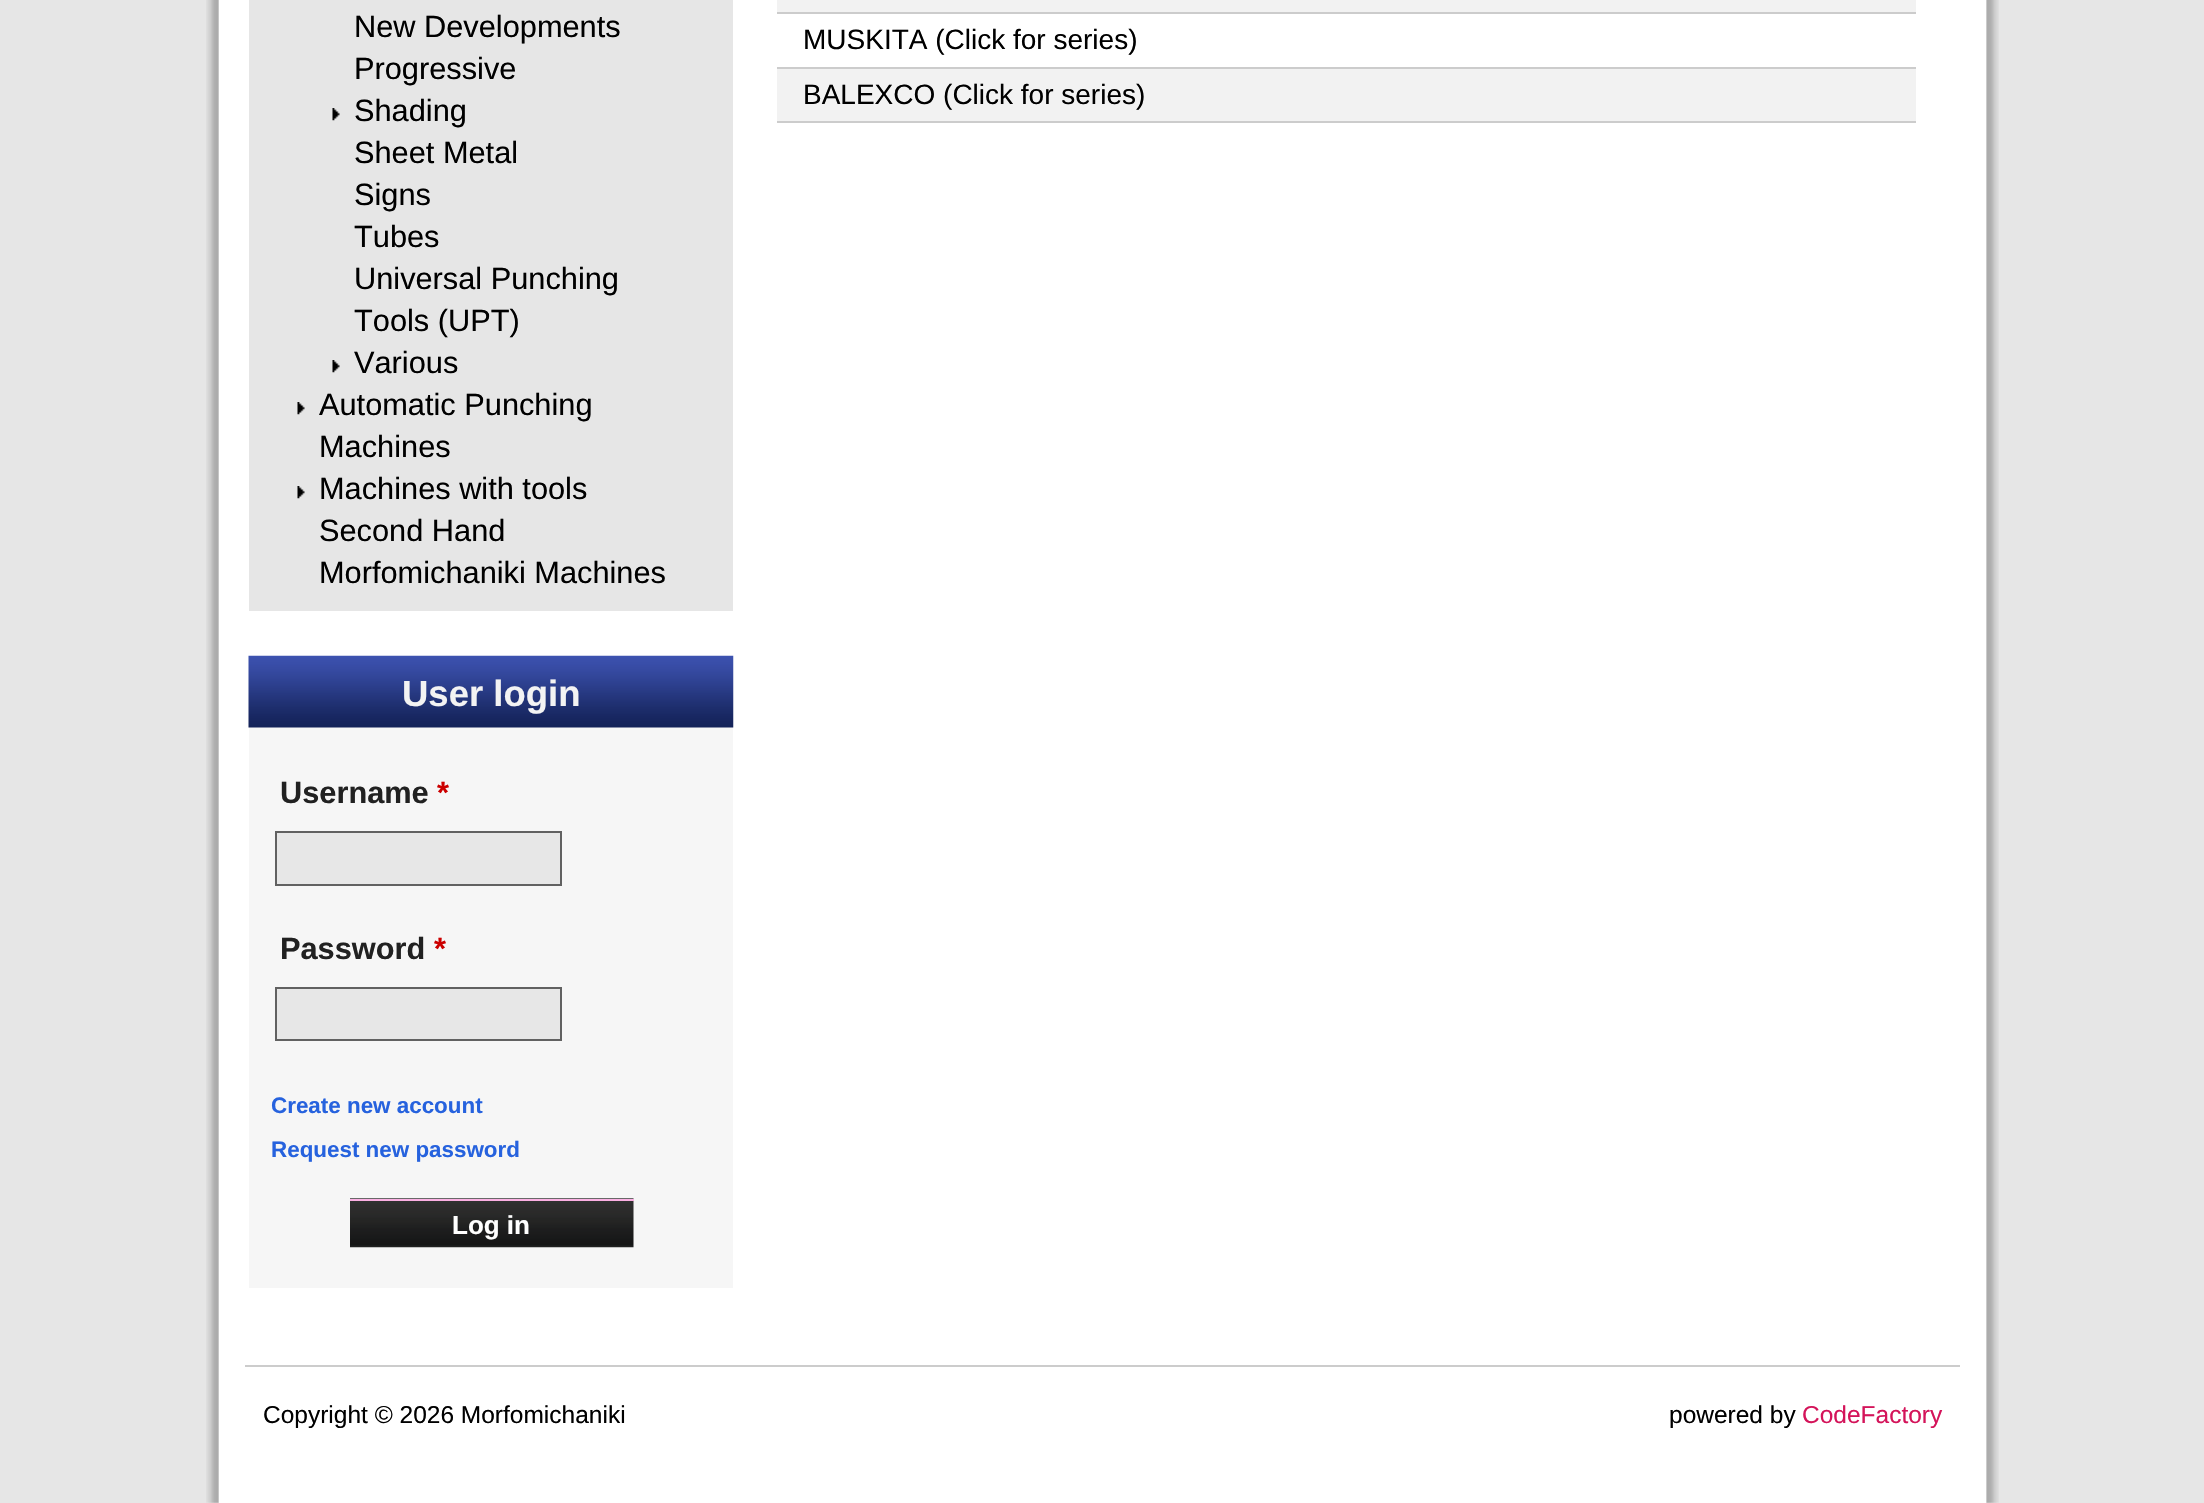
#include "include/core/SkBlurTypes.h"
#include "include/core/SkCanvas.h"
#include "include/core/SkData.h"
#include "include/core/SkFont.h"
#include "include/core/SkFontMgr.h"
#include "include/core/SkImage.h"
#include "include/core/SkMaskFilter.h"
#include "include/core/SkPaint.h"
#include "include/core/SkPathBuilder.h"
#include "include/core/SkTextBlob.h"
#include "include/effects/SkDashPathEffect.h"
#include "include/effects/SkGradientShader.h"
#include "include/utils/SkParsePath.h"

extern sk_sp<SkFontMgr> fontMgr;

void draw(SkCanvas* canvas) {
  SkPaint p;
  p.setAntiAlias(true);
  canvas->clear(SkColorSetRGB(230, 230, 230));
  canvas->drawImageRect(SkImages::DeferredFromEncodedData(SkData::MakeFromFileName("images/1.png")), SkRect::MakeLTRB(206, 0, 1999, 1503), SkSamplingOptions());
  p.setColor(SK_ColorWHITE);
  canvas->drawRect(SkRect::MakeLTRB(219, 0, 1986, 1503), p);
  p.setColor(SkColorSetRGB(204, 204, 204));
  canvas->drawRect(SkRect::MakeLTRB(245, 1365, 1960, 1367), p);
  p.setColor(SkColorSetRGB(230, 230, 230));
  canvas->drawRect(SkRect::MakeLTRB(249, 0, 733, 611), p);
  canvas->drawImageRect(SkImages::DeferredFromEncodedData(SkData::MakeFromFileName("images/2.png")), SkRect::MakeLTRB(332, 108, 340, 121), SkSamplingOptions());
  canvas->drawImageRect(SkImages::DeferredFromEncodedData(SkData::MakeFromFileName("images/2.png")), SkRect::MakeLTRB(332, 360, 340, 373), SkSamplingOptions());
  canvas->drawImageRect(SkImages::DeferredFromEncodedData(SkData::MakeFromFileName("images/2.png")), SkRect::MakeLTRB(297, 402, 305, 415), SkSamplingOptions());
  canvas->drawImageRect(SkImages::DeferredFromEncodedData(SkData::MakeFromFileName("images/2.png")), SkRect::MakeLTRB(297, 486, 305, 499), SkSamplingOptions());
  p.setColor(SkColorSetRGB(246, 246, 246));
  canvas->drawRect(SkRect::MakeLTRB(249, 727, 733, 1288), p);
  canvas->drawImageRect(SkImages::DeferredFromEncodedData(SkData::MakeFromFileName("images/3.png")), SkRect::MakeLTRB(248, 655, 734, 728), SkSamplingOptions());
  p.setColor(SkColorSetRGB(231, 231, 231));
  canvas->drawRect(SkRect::MakeLTRB(276, 832, 561, 885), p);
  p.setStyle(SkPaint::kStroke_Style);
  p.setStrokeWidth(2);
  p.setColor(SkColorSetRGB(97, 97, 97));
  canvas->drawRect(SkRect::MakeLTRB(276, 832, 561, 885), p);
  p.setStyle(SkPaint::kFill_Style);
  p.setColor(SkColorSetRGB(231, 231, 231));
  canvas->drawRect(SkRect::MakeLTRB(276, 988, 561, 1040), p);
  p.setStyle(SkPaint::kStroke_Style);
  p.setColor(SkColorSetRGB(97, 97, 97));
  canvas->drawRect(SkRect::MakeLTRB(276, 988, 561, 1040), p);
  canvas->drawImageRect(SkImages::DeferredFromEncodedData(SkData::MakeFromFileName("images/4.png")), SkRect::MakeLTRB(350, 1198, 634, 1248), SkSamplingOptions());
  p.setStyle(SkPaint::kFill_Style);
  p.setColor(SkColorSetRGB(251, 175, 227));
  canvas->drawRect(SkRect::MakeLTRB(350, 1199, 634, 1201), p);
  p.setColor(SkColorSetRGB(242, 242, 242));
  canvas->drawRect(SkRect::MakeLTRB(777, 0, 1916, 12), p);
  p.setColor(SkColorSetRGB(204, 204, 204));
  canvas->drawRect(SkRect::MakeLTRB(777, 12, 1916, 14), p);
  canvas->drawRect(SkRect::MakeLTRB(777, 67, 1916, 69), p);
  p.setColor(SkColorSetRGB(242, 242, 242));
  canvas->drawRect(SkRect::MakeLTRB(777, 69, 1916, 121), p);
  p.setColor(SkColorSetRGB(204, 204, 204));
  canvas->drawRect(SkRect::MakeLTRB(777, 121, 1916, 123), p);
  SkFont font1(fontMgr->matchFamilyStyle("Liberation Sans", SkFontStyle::Normal()), 30.75f);
  font1.setSubpixel(true);
  p.setColor(SK_ColorBLACK);
  canvas->drawString("New Developments", 354, 37, font1, p);
  canvas->drawString("Progressive", 354, 79, font1, p);
  canvas->drawString("Shading", 354, 121, font1, p);
  canvas->drawString("Sheet Metal", 354, 163, font1, p);
  canvas->drawString("Signs", 354, 205, font1, p);
  canvas->drawString("Tubes", 354, 247, font1, p);
  canvas->drawString("Universal Punching", 354, 289, font1, p);
  canvas->drawString("Tools (UPT)", 354, 331, font1, p);
  canvas->drawString("Various", 354, 373, font1, p);
  canvas->drawString("Automatic Punching", 319, 415, font1, p);
  canvas->drawString("Machines", 319, 457, font1, p);
  canvas->drawString("Machines with tools", 319, 499, font1, p);
  canvas->drawString("Second Hand", 319, 541, font1, p);
  canvas->drawString("Morfomichaniki Machines", 319, 583, font1, p);
  SkFont font2(fontMgr->matchFamilyStyle("Liberation Sans", SkFontStyle::Bold()), 36.5f);
  font2.setSubpixel(true);
  p.setColor(SkColorSetRGB(243, 243, 243));
  canvas->drawString("User login", 402, 706, font2, p);
  SkFont font3(fontMgr->matchFamilyStyle("Liberation Sans", SkFontStyle::Bold()), 30.75f);
  font3.setSubpixel(true);
  p.setColor(SkColorSetRGB(33, 33, 33));
  canvas->drawString("Username", 280, 803, font3, p);
  p.setColor(SkColorSetRGB(204, 0, 0));
  canvas->drawString("*", 437, 803, font3, p);
  p.setColor(SkColorSetRGB(33, 33, 33));
  canvas->drawString("Password", 280, 959, font3, p);
  p.setColor(SkColorSetRGB(204, 0, 0));
  canvas->drawString("*", 434, 959, font3, p);
  SkFont font4(fontMgr->matchFamilyStyle("Liberation Sans", SkFontStyle::Bold()), 22.4f);
  font4.setSubpixel(true);
  p.setColor(SkColorSetRGB(38, 98, 222));
  canvas->drawString("Create new account", 271, 1113, font4, p);
  canvas->drawString("Request new password", 271, 1157, font4, p);
  SkFont font5(fontMgr->matchFamilyStyle("Liberation Sans", SkFontStyle::Bold()), 26);
  font5.setSubpixel(true);
  p.setColor(SK_ColorWHITE);
  canvas->drawString("Log in", 452, 1234, font5, p);
  SkFont font6(fontMgr->matchFamilyStyle("Liberation Sans", SkFontStyle::Normal()), 28);
  font6.setSubpixel(true);
  p.setColor(SK_ColorBLACK);
  canvas->drawString("MUSKITA (Click for series)", 803, 49, font6, p);
  canvas->drawString("BALEXCO (Click for series)", 803, 104, font6, p);
  SkFont font7(fontMgr->matchFamilyStyle("Liberation Sans", SkFontStyle::Normal()), 24.5f);
  font7.setSubpixel(true);
  canvas->drawString("Copyright © 2026 Morfomichaniki", 263, 1423, font7, p);
  canvas->drawString("powered by", 1669, 1423, font7, p);
  p.setColor(SkColorSetRGB(212, 20, 90));
  canvas->drawString("CodeFactory", 1802, 1423, font7, p);
}
